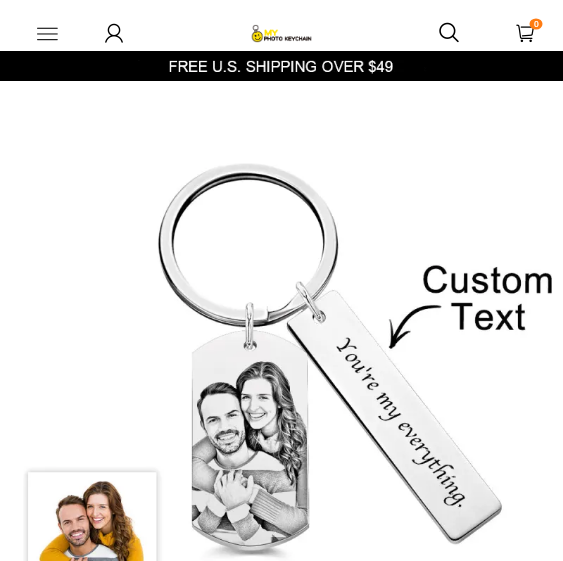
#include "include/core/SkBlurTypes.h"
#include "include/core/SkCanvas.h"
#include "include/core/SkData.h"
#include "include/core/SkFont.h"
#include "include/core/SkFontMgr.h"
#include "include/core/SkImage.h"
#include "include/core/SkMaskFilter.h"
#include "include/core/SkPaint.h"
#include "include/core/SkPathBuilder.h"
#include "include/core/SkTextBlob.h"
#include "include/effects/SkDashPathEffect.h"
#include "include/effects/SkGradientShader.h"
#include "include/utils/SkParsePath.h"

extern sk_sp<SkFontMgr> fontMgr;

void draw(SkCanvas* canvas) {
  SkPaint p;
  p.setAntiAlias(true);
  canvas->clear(SK_ColorWHITE);
  canvas->drawImageRect(SkImages::DeferredFromEncodedData(SkData::MakeFromFileName("images/1.png")), SkRect::MakeLTRB(37, 27, 58, 41), SkSamplingOptions());
  canvas->drawImageRect(SkImages::DeferredFromEncodedData(SkData::MakeFromFileName("images/2.png")), SkRect::MakeLTRB(105, 23, 123, 43), SkSamplingOptions());
  canvas->drawImageRect(SkImages::DeferredFromEncodedData(SkData::MakeFromFileName("images/3.png")), SkRect::MakeLTRB(251, 24, 312, 43), SkSamplingOptions());
  canvas->drawImageRect(SkImages::DeferredFromEncodedData(SkData::MakeFromFileName("images/4.png")), SkRect::MakeLTRB(439, 22, 459, 43), SkSamplingOptions());
  canvas->drawImageRect(SkImages::DeferredFromEncodedData(SkData::MakeFromFileName("images/5.png")), SkRect::MakeLTRB(516, 24, 534, 43), SkSamplingOptions());
  p.setColor(SkColorSetRGB(255, 124, 18));
  canvas->drawOval(SkRect::MakeLTRB(529.5f, 18.5f, 542.5f, 29.5f), p);
  canvas->drawImageRect(SkImages::DeferredFromEncodedData(SkData::MakeFromFileName("images/6.png")), SkRect::MakeLTRB(0, 51, 563, 81), SkSamplingOptions());
  canvas->drawImageRect(SkImages::DeferredFromEncodedData(SkData::MakeFromFileName("images/7.png")), SkRect::MakeLTRB(23, 163, 552, 561), SkSamplingOptions());
  SkFont font1(fontMgr->matchFamilyStyle("Open Sans", SkFontStyle::Bold()), 8);
  font1.setSubpixel(true);
  p.setColor(SK_ColorWHITE);
  canvas->drawString("0", 534, 27, font1, p);
}
